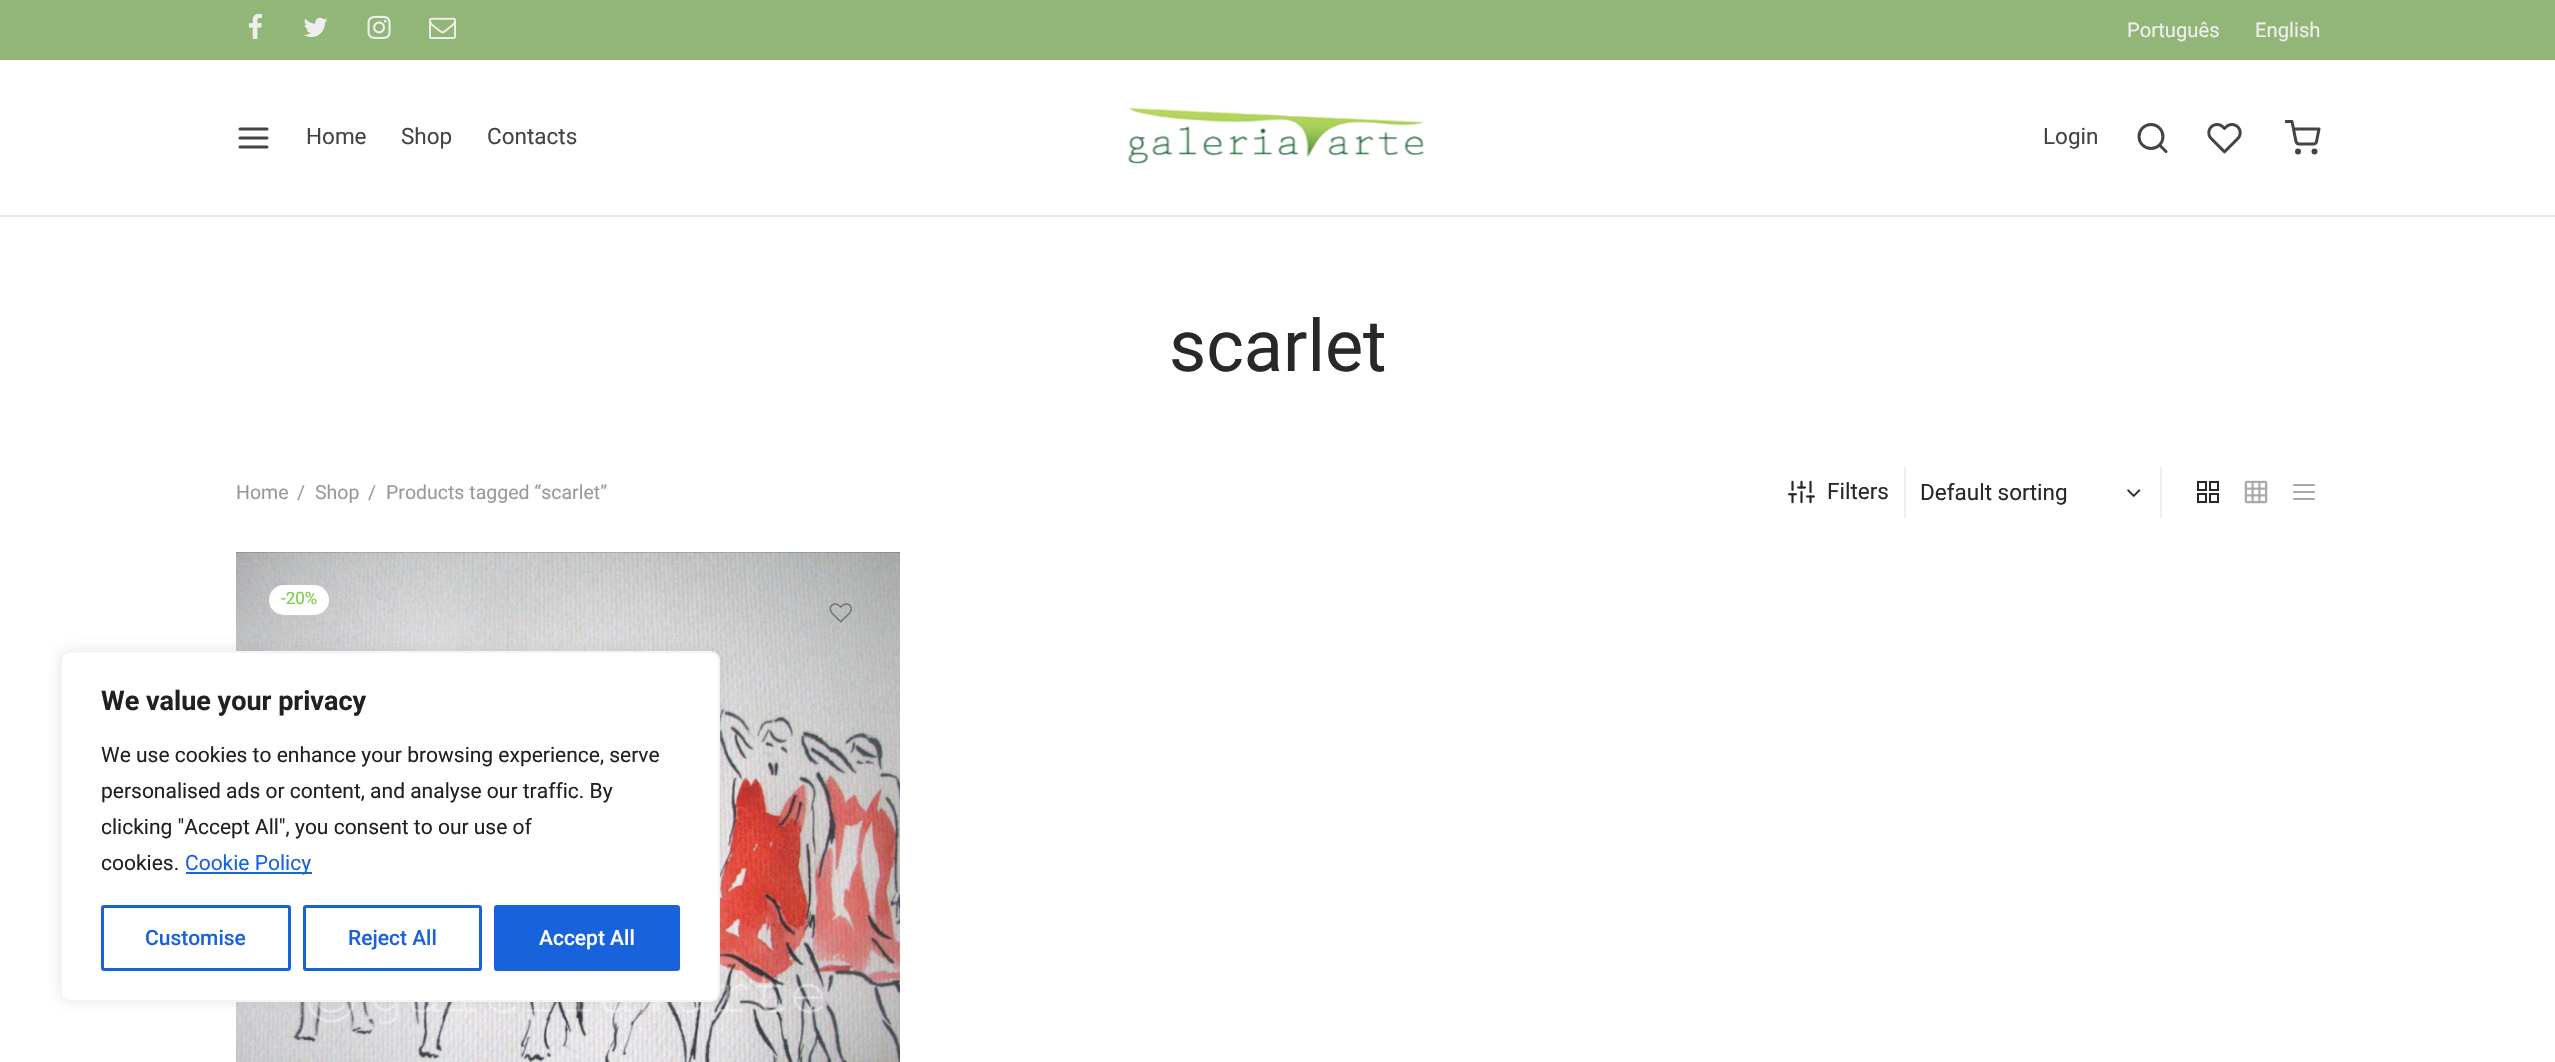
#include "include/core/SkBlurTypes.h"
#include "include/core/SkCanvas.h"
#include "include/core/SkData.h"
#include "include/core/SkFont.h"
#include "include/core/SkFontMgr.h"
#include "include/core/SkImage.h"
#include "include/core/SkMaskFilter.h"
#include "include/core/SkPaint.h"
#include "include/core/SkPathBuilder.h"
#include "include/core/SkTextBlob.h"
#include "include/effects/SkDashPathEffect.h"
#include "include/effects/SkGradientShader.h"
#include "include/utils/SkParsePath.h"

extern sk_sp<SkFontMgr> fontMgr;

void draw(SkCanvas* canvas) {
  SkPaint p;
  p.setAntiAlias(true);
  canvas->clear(SK_ColorWHITE);
  p.setColor(SkColorSetRGB(146, 182, 120));
  canvas->drawRect(SkRect::MakeLTRB(0, 0, 2555, 60), p);
  canvas->drawImageRect(SkImages::DeferredFromEncodedData(SkData::MakeFromFileName("images/1.png")), SkRect::MakeLTRB(248, 13, 262, 39), SkSamplingOptions());
  canvas->drawImageRect(SkImages::DeferredFromEncodedData(SkData::MakeFromFileName("images/2.png")), SkRect::MakeLTRB(304, 17, 328, 38), SkSamplingOptions());
  canvas->drawImageRect(SkImages::DeferredFromEncodedData(SkData::MakeFromFileName("images/3.png")), SkRect::MakeLTRB(367, 15, 391, 39), SkSamplingOptions());
  canvas->drawImageRect(SkImages::DeferredFromEncodedData(SkData::MakeFromFileName("images/4.png")), SkRect::MakeLTRB(429, 17, 456, 39), SkSamplingOptions());
  p.setStyle(SkPaint::kStroke_Style);
  p.setStrokeWidth(3);
  p.setStrokeCap(SkPaint::kRound_Cap);
  p.setStrokeJoin(SkPaint::kRound_Join);
  p.setColor(SkColorSetRGB(68, 68, 68));
  canvas->drawPath(SkPathBuilder().moveTo(240, 138).lineTo(267, 138).moveTo(240, 129).lineTo(267, 129).moveTo(240, 147).lineTo(267, 147).detach(), p);
  canvas->drawImageRect(SkImages::DeferredFromEncodedData(SkData::MakeFromFileName("images/5.png")), SkRect::MakeLTRB(1128, 108, 1424, 164), SkSamplingOptions());
  p.setStrokeCap(SkPaint::kButt_Cap);
  p.setStrokeJoin(SkPaint::kMiter_Join);
  canvas->drawCircle(2151, 136.5f, 12, p);
  p.setStrokeCap(SkPaint::kRound_Cap);
  p.setStrokeJoin(SkPaint::kRound_Join);
  canvas->drawPath(SkPathBuilder().moveTo(2166, 151.5f).lineTo(2159.5f, 145).detach(), p);
  canvas->drawImageRect(SkImages::DeferredFromEncodedData(SkData::MakeFromFileName("images/6.png")), SkRect::MakeLTRB(2207, 123, 2242, 154), SkSamplingOptions());
  p.setStrokeCap(SkPaint::kButt_Cap);
  p.setStrokeJoin(SkPaint::kMiter_Join);
  canvas->drawCircle(2298, 151.5f, 1.5f, p);
  canvas->drawCircle(2314.5f, 151.5f, 1.5f, p);
  canvas->save();
  canvas->clipRect(SkRect::MakeLTRB(2285, 120, 2321, 156));
  p.setStrokeCap(SkPaint::kRound_Cap);
  p.setStrokeJoin(SkPaint::kRound_Join);
  canvas->drawPath(SkPathBuilder().moveTo(2286, 121.5f).lineTo(2292, 121.5f).lineTo(2296, 141.5f).cubicTo(2296.5f, 143, 2297.5f, 144, 2299, 144).lineTo(2313.5f, 144).cubicTo(2315, 144, 2316.5f, 143, 2316.5f, 141.5f).lineTo(2319, 129).lineTo(2293.5f, 129).detach(), p);
  canvas->restore();
  p.setStyle(SkPaint::kFill_Style);
  p.setColor(SkColorSetRGB(230, 230, 230));
  canvas->drawRect(SkRect::MakeLTRB(0, 215, 2555, 217), p);
  p.setColor(SkColorSetRGB(238, 238, 238));
  canvas->drawRect(SkRect::MakeLTRB(1904, 467, 1906, 518), p);
  canvas->drawImageRect(SkImages::DeferredFromEncodedData(SkData::MakeFromFileName("images/7.png")), SkRect::MakeLTRB(1788, 480, 1815, 504), SkSamplingOptions());
  canvas->drawImageRect(SkImages::DeferredFromEncodedData(SkData::MakeFromFileName("images/8.png")), SkRect::MakeLTRB(2127, 489, 2141, 497), SkSamplingOptions());
  canvas->drawRect(SkRect::MakeLTRB(2160, 467, 2162, 518), p);
  p.setStyle(SkPaint::kStroke_Style);
  p.setStrokeWidth(2);
  p.setStrokeCap(SkPaint::kButt_Cap);
  p.setStrokeJoin(SkPaint::kMiter_Join);
  p.setColor(SkColorSetRGB(40, 40, 40));
  canvas->drawRect(SkRect::MakeLTRB(2198, 482, 2206, 490), p);
  canvas->drawRect(SkRect::MakeLTRB(2210, 482, 2218, 490), p);
  canvas->drawRect(SkRect::MakeLTRB(2198, 494, 2206, 502), p);
  canvas->drawRect(SkRect::MakeLTRB(2210, 494, 2218, 502), p);
  canvas->drawImageRect(SkImages::DeferredFromEncodedData(SkData::MakeFromFileName("images/9.png")), SkRect::MakeLTRB(2244, 480, 2268, 504), SkSamplingOptions());
  p.setStrokeWidth(2.2f);
  p.setStrokeCap(SkPaint::kRound_Cap);
  p.setStrokeJoin(SkPaint::kRound_Join);
  p.setColor(SkColorSetRGB(169, 169, 169));
  canvas->drawPath(SkPathBuilder().moveTo(2294, 492).lineTo(2314, 492).moveTo(2294, 485).lineTo(2314, 485).moveTo(2294, 499).lineTo(2314, 499).detach(), p);
  canvas->drawImageRect(SkImages::DeferredFromEncodedData(SkData::MakeFromFileName("images/10.png")), SkRect::MakeLTRB(236, 552, 900, 1062), SkSamplingOptions());
  p.setStyle(SkPaint::kFill_Style);
  p.setColor(SK_ColorWHITE);
  canvas->drawRoundRect(SkRect::MakeLTRB(269, 585, 329, 615), 15, 15, p);
  canvas->drawImageRect(SkImages::DeferredFromEncodedData(SkData::MakeFromFileName("images/11.png")), SkRect::MakeLTRB(829, 603, 852, 623), SkSamplingOptions());
  p.setColor(SkColorSetARGB(77, 172, 171, 171));
  p.setMaskFilter(SkMaskFilter::MakeBlur(kNormal_SkBlurStyle, 7.5f));
  canvas->drawRoundRect(SkRect::MakeLTRB(60, 650, 720, 1001), 9, 9, p);
  p.setMaskFilter(nullptr);
  p.setColor(SK_ColorWHITE);
  canvas->drawRoundRect(SkRect::MakeLTRB(61, 652, 719, 1001), 8, 8, p);
  p.setStyle(SkPaint::kStroke_Style);
  p.setStrokeWidth(2);
  p.setStrokeCap(SkPaint::kButt_Cap);
  p.setStrokeJoin(SkPaint::kMiter_Join);
  p.setColor(SkColorSetRGB(244, 244, 244));
  canvas->drawRoundRect(SkRect::MakeLTRB(61, 652, 719, 1001), 8, 8, p);
  p.setStyle(SkPaint::kFill_Style);
  p.setColor(SkColorSetRGB(24, 99, 220));
  canvas->drawRect(SkRect::MakeLTRB(186, 872, 312, 874), p);
  p.setStyle(SkPaint::kStroke_Style);
  p.setStrokeWidth(3);
  canvas->drawRoundRect(SkRect::MakeLTRB(102.5f, 906.5f, 289.5f, 969.5f), 1.5f, 1.5f, p);
  canvas->drawRoundRect(SkRect::MakeLTRB(304.5f, 906.5f, 480.5f, 969.5f), 1.5f, 1.5f, p);
  p.setStyle(SkPaint::kFill_Style);
  canvas->drawRoundRect(SkRect::MakeLTRB(495.5f, 906.5f, 678.5f, 969.5f), 1.5f, 1.5f, p);
  p.setStyle(SkPaint::kStroke_Style);
  canvas->drawRoundRect(SkRect::MakeLTRB(495.5f, 906.5f, 678.5f, 969.5f), 1.5f, 1.5f, p);
  SkFont font1(fontMgr->matchFamilyStyle("Roboto", SkFontStyle::Normal()), 20.25f);
  font1.setSubpixel(true);
  p.setStyle(SkPaint::kFill_Style);
  p.setColor(SkColorSetRGB(238, 238, 238));
  canvas->drawString("Português", 2127, 37, font1, p);
  canvas->drawString("English", 2255, 37, font1, p);
  SkFont font2(fontMgr->matchFamilyStyle("Roboto", SkFontStyle::Normal()), 22.5f);
  font2.setSubpixel(true);
  p.setColor(SkColorSetRGB(68, 68, 68));
  canvas->drawString("Home", 306, 144, font2, p);
  canvas->drawString("Shop", 401, 144, font2, p);
  canvas->drawString("Contacts", 487, 144, font2, p);
  canvas->drawString("Login", 2043, 144, font2, p);
  SkFont font3(fontMgr->matchFamilyStyle("Roboto", SkFontStyle::Normal()), 72);
  font3.setSubpixel(true);
  p.setColor(SkColorSetRGB(40, 40, 40));
  canvas->drawString("scarlet", 1169, 371, font3, p);
  SkFont font4(fontMgr->matchFamilyStyle("Roboto", SkFontStyle::Normal()), 19.5f);
  font4.setSubpixel(true);
  p.setColor(SkColorSetRGB(153, 153, 153));
  canvas->drawString("Home", 236, 499, font4, p);
  canvas->drawString("/", 297, 499, font4, p);
  canvas->drawString("Shop", 315, 499, font4, p);
  canvas->drawString("/", 368, 499, font4, p);
  canvas->drawString("Products tagged “scarlet”", 386, 499, font4, p);
  p.setColor(SkColorSetRGB(40, 40, 40));
  canvas->drawString("Filters", 1827, 499, font2, p);
  canvas->drawString("Default sorting", 1920, 500, font2, p);
  SkFont font5(fontMgr->matchFamilyStyle("Roboto", SkFontStyle::Normal()), 17);
  font5.setSubpixel(true);
  p.setColor(SkColorSetRGB(122, 205, 63));
  canvas->drawString("-20%", 281, 604, font5, p);
  SkFont font6(fontMgr->matchFamilyStyle("Roboto", SkFontStyle::Bold()), 27);
  font6.setSubpixel(true);
  p.setColor(SkColorSetRGB(33, 33, 33));
  canvas->drawString("We value your privacy", 101, 710, font6, p);
  SkFont font7(fontMgr->matchFamilyStyle("Roboto", SkFontStyle::Normal()), 21);
  font7.setSubpixel(true);
  canvas->drawString("We use cookies to enhance your browsing experience, serve", 101, 762, font7, p);
  canvas->drawString("personalised ads or content, and analyse our traffic. By", 101, 798, font7, p);
  canvas->drawString("clicking \"Accept All\", you consent to our use of", 101, 834, font7, p);
  canvas->drawString("cookies.", 101, 870, font7, p);
  p.setColor(SkColorSetRGB(24, 99, 220));
  canvas->drawString("Cookie Policy", 185, 870, font7, p);
  SkFont font8(fontMgr->matchFamilyStyle("Roboto", SkFontStyle(500, SkFontStyle::kNormal_Width, SkFontStyle::kUpright_Slant)), 21);
  font8.setSubpixel(true);
  canvas->drawString("Customise", 145, 945, font8, p);
  canvas->drawString("Reject All", 348, 945, font8, p);
  p.setColor(SK_ColorWHITE);
  canvas->drawString("Accept All", 539, 945, font8, p);
}
